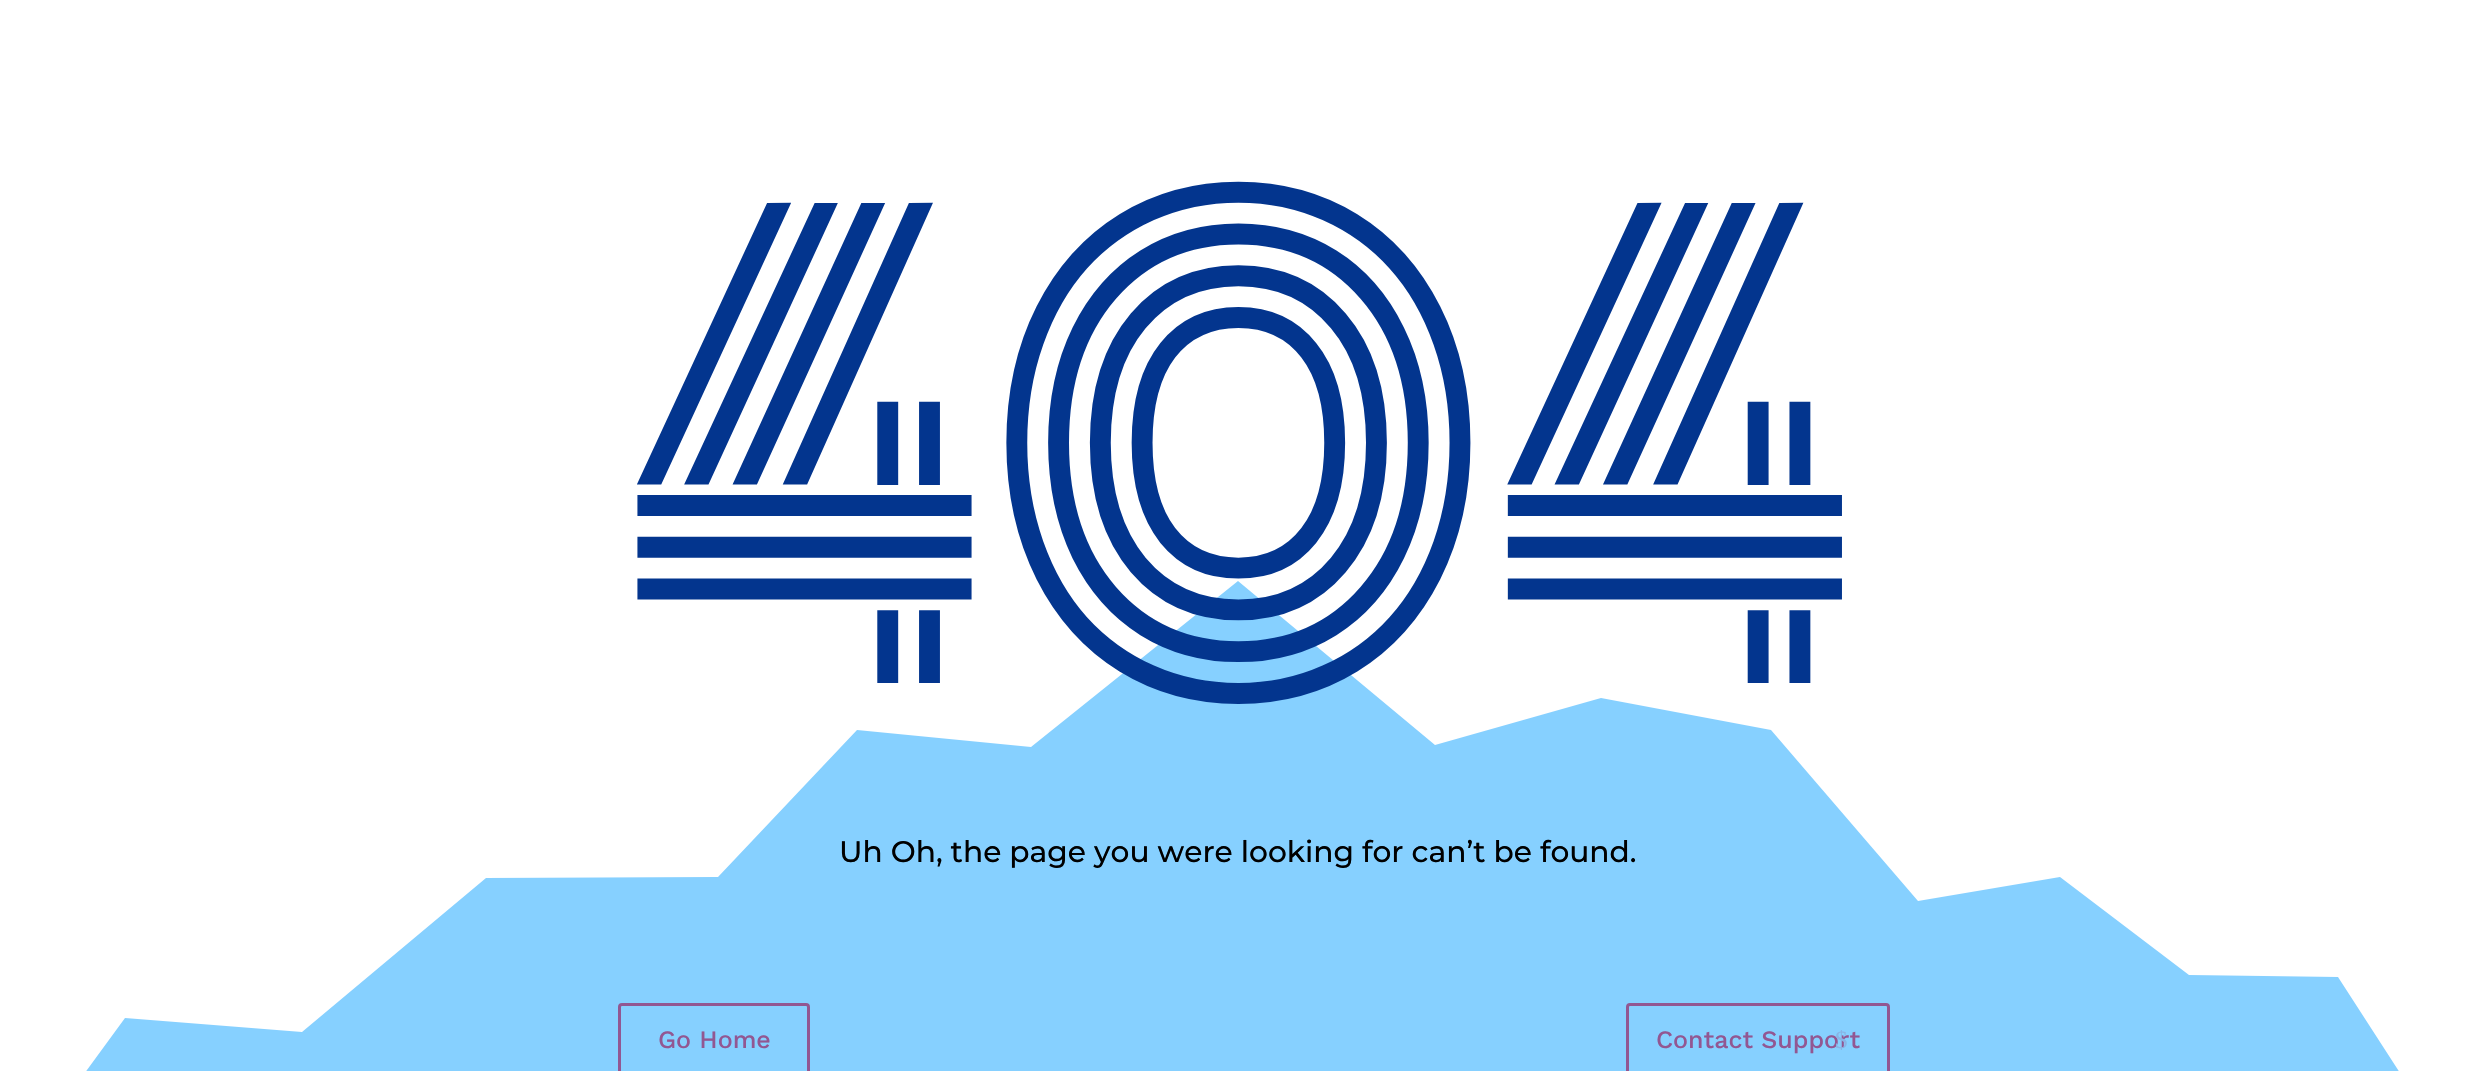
#include "include/core/SkBlurTypes.h"
#include "include/core/SkCanvas.h"
#include "include/core/SkData.h"
#include "include/core/SkFont.h"
#include "include/core/SkFontMgr.h"
#include "include/core/SkImage.h"
#include "include/core/SkMaskFilter.h"
#include "include/core/SkPaint.h"
#include "include/core/SkPathBuilder.h"
#include "include/core/SkTextBlob.h"
#include "include/effects/SkDashPathEffect.h"
#include "include/effects/SkGradientShader.h"
#include "include/utils/SkParsePath.h"

extern sk_sp<SkFontMgr> fontMgr;

void draw(SkCanvas* canvas) {
  SkPaint p;
  p.setAntiAlias(true);
  canvas->clear(SK_ColorWHITE);
  p.setColor(SkColorSetRGB(134, 208, 255));
  canvas->drawPath(SkPathBuilder().moveTo(302, 1032).lineTo(486, 878).lineTo(718, 877).lineTo(857, 730).lineTo(1031, 747).lineTo(1238, 581).lineTo(1435, 745).lineTo(1601, 698).lineTo(1771, 730).lineTo(1918, 901).lineTo(2060, 877).lineTo(2189, 975).lineTo(2338, 977).lineTo(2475, 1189).lineTo(0, 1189).lineTo(125, 1018).close().detach(), p);
  p.setStyle(SkPaint::kStroke_Style);
  p.setStrokeWidth(3);
  p.setColor(SkColorSetRGB(146, 87, 146));
  canvas->drawRoundRect(SkRect::MakeLTRB(619.5f, 1004.5f, 808.5f, 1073.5f), 2.5f, 2.5f, p);
  canvas->drawRoundRect(SkRect::MakeLTRB(1627.5f, 1004.5f, 1888.5f, 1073.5f), 2.5f, 2.5f, p);
  SkFont font1(fontMgr->matchFamilyStyle("Monoton", SkFontStyle::Normal()), 594);
  font1.setSubpixel(true);
  p.setStyle(SkPaint::kFill_Style);
  p.setColor(SkColorSetRGB(3, 53, 142));
  canvas->drawString("404", 618, 683, font1, p);
  SkFont font2(fontMgr->matchFamilyStyle("Montserrat", SkFontStyle(500, SkFontStyle::kNormal_Width, SkFontStyle::kUpright_Slant)), 29.7f);
  font2.setSubpixel(true);
  p.setColor(SK_ColorBLACK);
  canvas->drawString("Uh Oh, the page you were looking for can’t be found.", 839, 862, font2, p);
  SkFont font3(fontMgr->matchFamilyStyle("Work Sans", SkFontStyle(500, SkFontStyle::kNormal_Width, SkFontStyle::kUpright_Slant)), 25);
  font3.setSubpixel(true);
  p.setColor(SkColorSetRGB(146, 87, 146));
  canvas->drawString("Go Home", 658, 1048, font3, p);
  canvas->drawString("Contact Support", 1656, 1048, font3, p);
  SkFont font4(fontMgr->matchFamilyStyle("Liberation Serif", SkFontStyle::Normal()), 25);
  font4.setSubpixel(true);
  p.setColor(SkColorSetRGB(137, 180, 229));
  canvas->drawString("$", 1835, 1048, font4, p);
}
